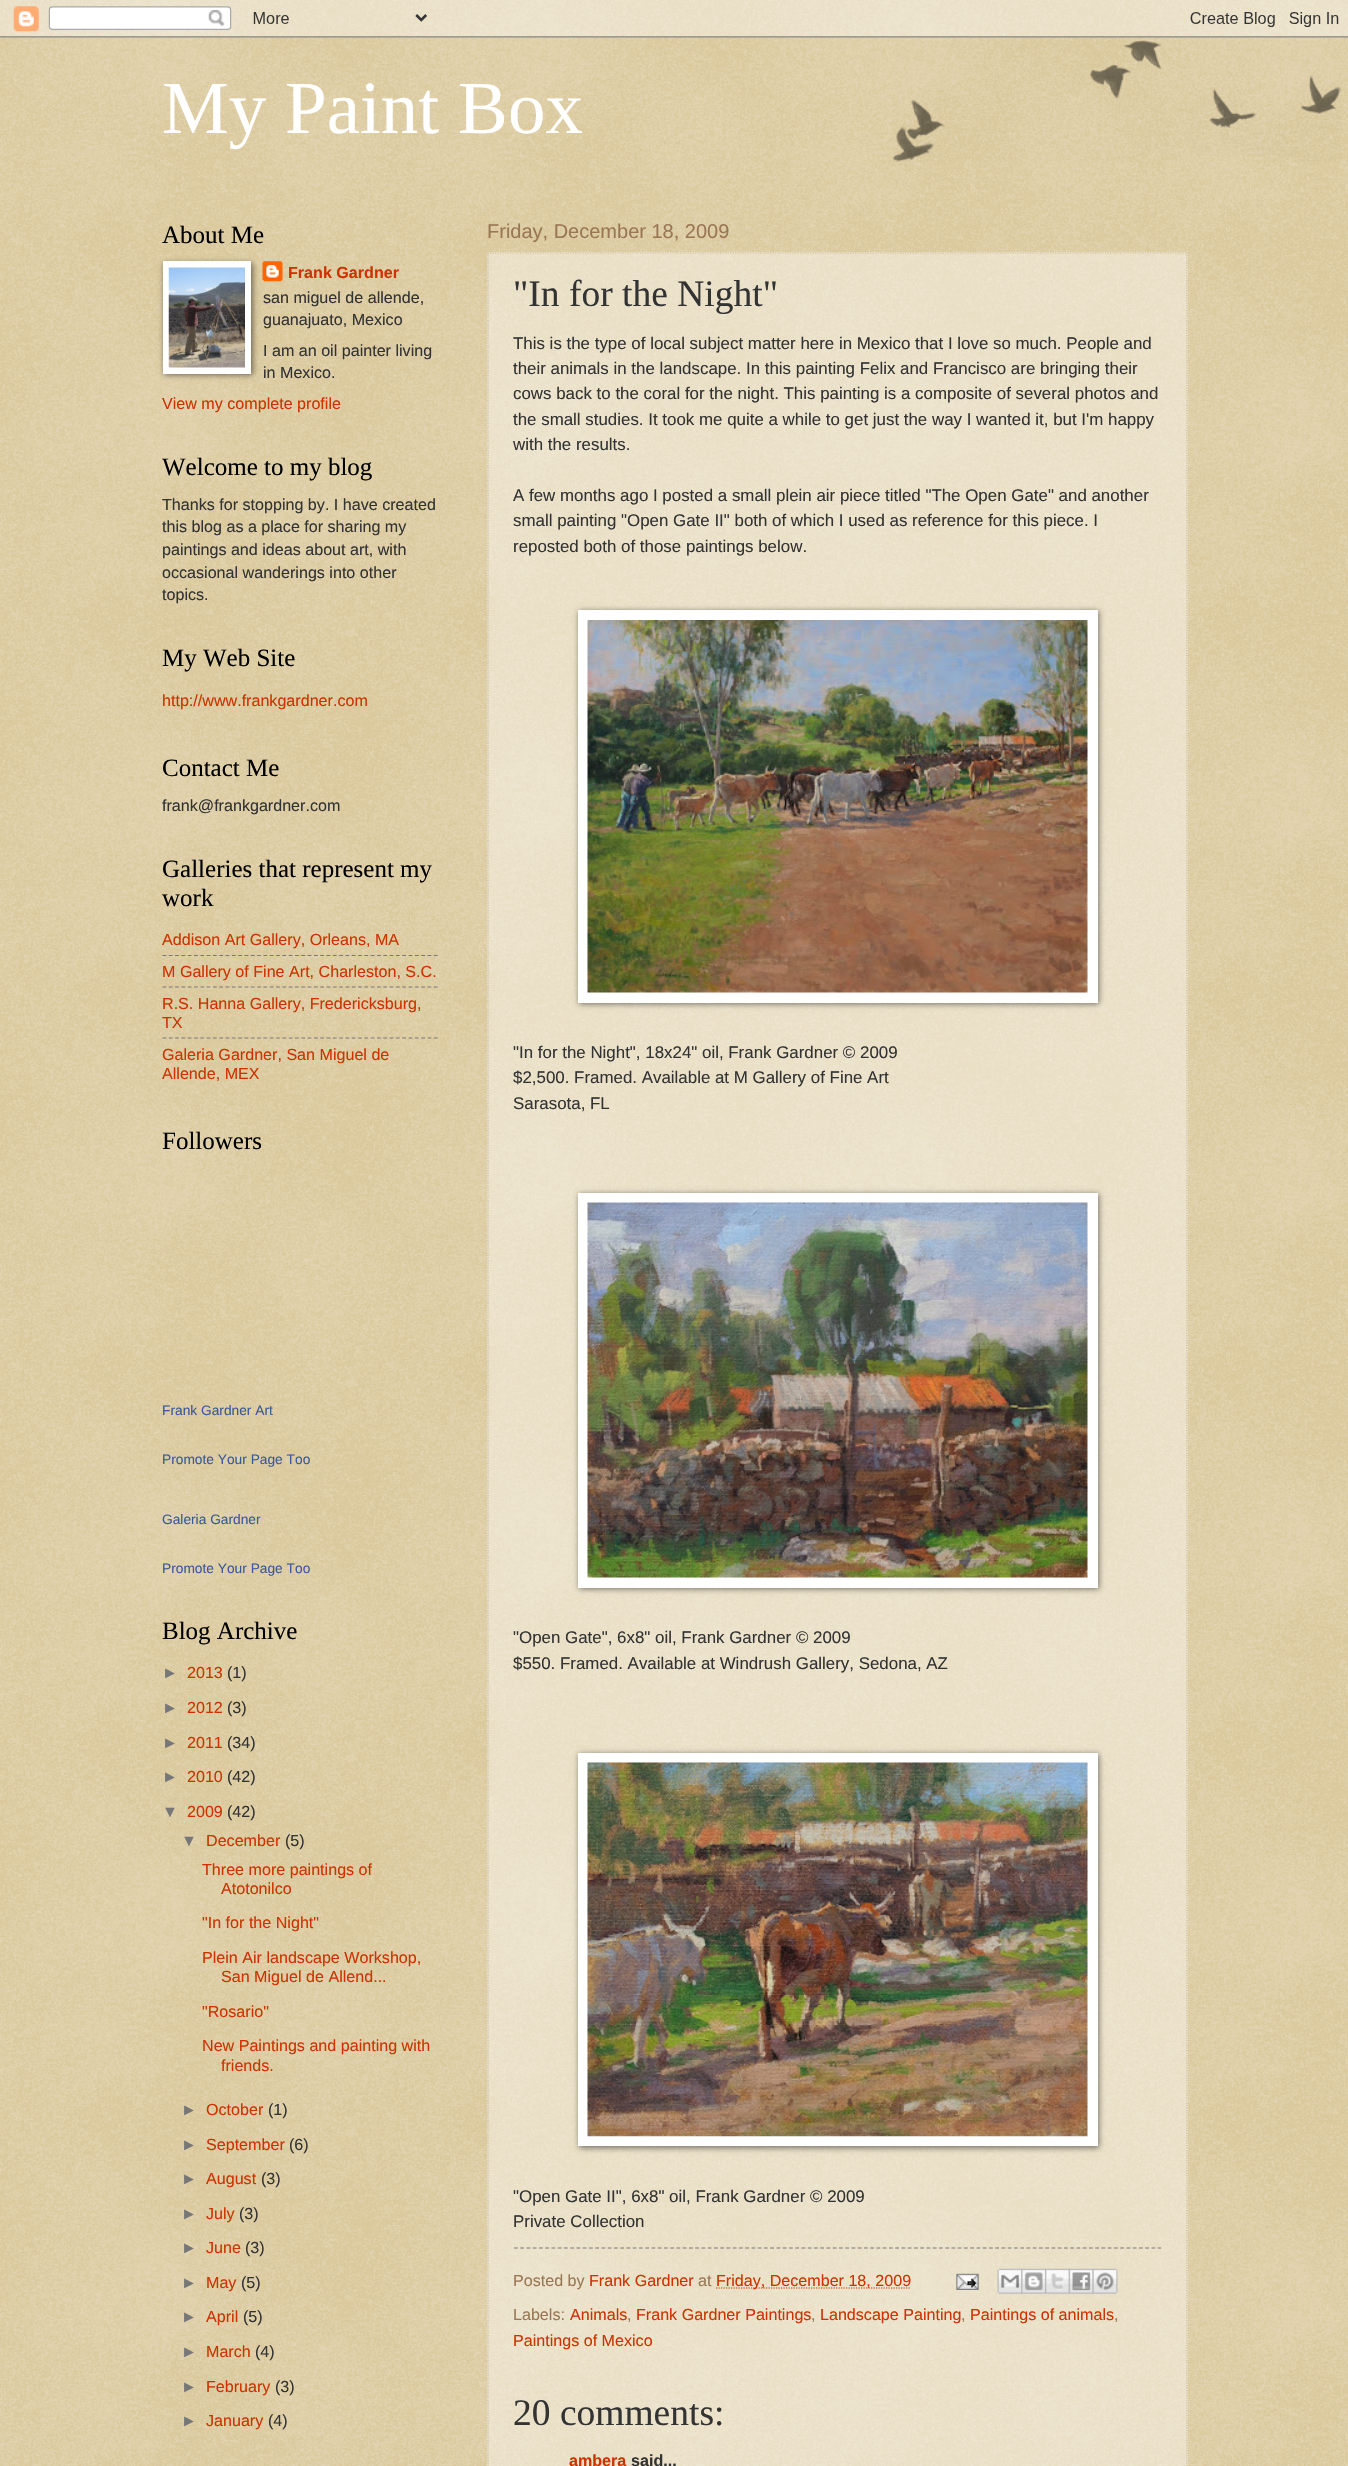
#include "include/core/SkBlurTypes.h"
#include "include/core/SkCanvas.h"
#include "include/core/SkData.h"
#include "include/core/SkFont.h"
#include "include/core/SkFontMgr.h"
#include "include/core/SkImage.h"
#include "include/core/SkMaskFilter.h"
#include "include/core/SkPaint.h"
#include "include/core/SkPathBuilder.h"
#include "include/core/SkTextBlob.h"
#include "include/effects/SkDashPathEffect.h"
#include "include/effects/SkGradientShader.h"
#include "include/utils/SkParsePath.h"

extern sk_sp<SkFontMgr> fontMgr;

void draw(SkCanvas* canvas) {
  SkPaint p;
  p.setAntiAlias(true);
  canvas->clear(SkColorSetRGB(192, 161, 84));
  canvas->drawImageRect(SkImages::DeferredFromEncodedData(SkData::MakeFromFileName("images/1.png")), SkRect::MakeLTRB(0, 0, 1348, 2466), SkSamplingOptions());
  canvas->drawImageRect(SkImages::DeferredFromEncodedData(SkData::MakeFromFileName("images/2.png")), SkRect::MakeLTRB(0, 0, 1348, 38), SkSamplingOptions());
  canvas->drawImageRect(SkImages::DeferredFromEncodedData(SkData::MakeFromFileName("images/3.png")), SkRect::MakeLTRB(892, 40, 1342, 162), SkSamplingOptions());
  canvas->drawImageRect(SkImages::DeferredFromEncodedData(SkData::MakeFromFileName("images/5.png")), SkRect::MakeLTRB(262, 261, 283, 282), SkSamplingOptions());
  p.setColor(SkColorSetARGB(128, 0, 0, 0));
  p.setMaskFilter(SkMaskFilter::MakeBlur(kNormal_SkBlurStyle, 3));
  canvas->drawRect(SkRect::MakeLTRB(164, 263, 253, 375), p);
  p.setMaskFilter(nullptr);
  p.setColor(SK_ColorWHITE);
  canvas->drawRect(SkRect::MakeLTRB(163, 261, 251, 374), p);
  canvas->drawImageRect(SkImages::DeferredFromEncodedData(SkData::MakeFromFileName("images/4.png")), SkRect::MakeLTRB(168, 267, 245, 368), SkSamplingOptions());
  p.setStyle(SkPaint::kStroke_Style);
  p.setStrokeWidth(1.2f);
  p.setColor(SkColorSetRGB(119, 119, 119));
  p.setPathEffect(SkDashPathEffect::Make({{3.75f, 2.56f}}, 0));
  canvas->drawPath(SkPathBuilder().moveTo(162.5f, 955.5f).lineTo(437.5f, 955.5f).detach(), p);
  p.setPathEffect(nullptr);
  p.setPathEffect(SkDashPathEffect::Make({{3.75f, 2.56f}}, 0));
  canvas->drawPath(SkPathBuilder().moveTo(162.5f, 987).lineTo(437.5f, 987).detach(), p);
  p.setPathEffect(nullptr);
  p.setPathEffect(SkDashPathEffect::Make({{3.75f, 2.56f}}, 0));
  canvas->drawPath(SkPathBuilder().moveTo(162.5f, 1038).lineTo(437.5f, 1038).detach(), p);
  p.setPathEffect(nullptr);
  p.setStyle(SkPaint::kFill_Style);
  p.setColor(SkColorSetARGB(102, 255, 255, 255));
  canvas->drawRect(SkRect::MakeLTRB(487, 252, 1188, 2466), p);
  p.setStyle(SkPaint::kStroke_Style);
  p.setColor(SkColorSetRGB(204, 187, 153));
  p.setPathEffect(SkDashPathEffect::Make({{1.25f, 1.25f}}, 0));
  canvas->drawPath(SkPathBuilder().moveTo(487.5f, 253).lineTo(1187.5f, 253).detach(), p);
  p.setPathEffect(nullptr);
  p.setPathEffect(SkDashPathEffect::Make({{1.25f, 1.25f}}, 0));
  canvas->drawPath(SkPathBuilder().moveTo(1187, 252.5f).lineTo(1187, 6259).detach(), p);
  p.setPathEffect(nullptr);
  p.setPathEffect(SkDashPathEffect::Make({{1.25f, 1.25f}}, 0));
  canvas->drawPath(SkPathBuilder().moveTo(488, 252.5f).lineTo(488, 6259).detach(), p);
  p.setPathEffect(nullptr);
  p.setStyle(SkPaint::kFill_Style);
  p.setColor(SkColorSetARGB(128, 0, 0, 0));
  p.setMaskFilter(SkMaskFilter::MakeBlur(kNormal_SkBlurStyle, 3));
  canvas->drawRect(SkRect::MakeLTRB(579, 611, 1099, 1004), p);
  p.setMaskFilter(nullptr);
  p.setColor(SK_ColorWHITE);
  canvas->drawRect(SkRect::MakeLTRB(578, 610, 1098, 1003), p);
  canvas->drawImageRect(SkImages::DeferredFromEncodedData(SkData::MakeFromFileName("images/6.png")), SkRect::MakeLTRB(587, 620, 1088, 993), SkSamplingOptions());
  p.setColor(SkColorSetARGB(128, 0, 0, 0));
  p.setMaskFilter(SkMaskFilter::MakeBlur(kNormal_SkBlurStyle, 3));
  canvas->drawRect(SkRect::MakeLTRB(579, 1194, 1099, 1589), p);
  p.setMaskFilter(nullptr);
  p.setColor(SK_ColorWHITE);
  canvas->drawRect(SkRect::MakeLTRB(578, 1193, 1098, 1588), p);
  canvas->drawImageRect(SkImages::DeferredFromEncodedData(SkData::MakeFromFileName("images/7.png")), SkRect::MakeLTRB(587, 1202, 1088, 1578), SkSamplingOptions());
  p.setColor(SkColorSetARGB(128, 0, 0, 0));
  p.setMaskFilter(SkMaskFilter::MakeBlur(kNormal_SkBlurStyle, 3));
  canvas->drawRect(SkRect::MakeLTRB(579, 1754, 1099, 2148), p);
  p.setMaskFilter(nullptr);
  p.setColor(SK_ColorWHITE);
  canvas->drawRect(SkRect::MakeLTRB(578, 1753, 1098, 2146), p);
  canvas->drawImageRect(SkImages::DeferredFromEncodedData(SkData::MakeFromFileName("images/8.png")), SkRect::MakeLTRB(587, 1762, 1088, 2137), SkSamplingOptions());
  p.setStyle(SkPaint::kStroke_Style);
  p.setColor(SkColorSetRGB(119, 119, 119));
  p.setPathEffect(SkDashPathEffect::Make({{3.75f, 2.5f}}, 0));
  canvas->drawPath(SkPathBuilder().moveTo(514, 2248).lineTo(1161, 2248).detach(), p);
  p.setPathEffect(nullptr);
  p.setColor(SkColorSetRGB(204, 51, 0));
  p.setPathEffect(SkDashPathEffect::Make({{1.25f, 1.25f}}, 0));
  canvas->drawPath(SkPathBuilder().moveTo(716, 2288).lineTo(911, 2288).detach(), p);
  p.setPathEffect(nullptr);
  canvas->drawImageRect(SkImages::DeferredFromEncodedData(SkData::MakeFromFileName("images/9.png")), SkRect::MakeLTRB(956, 2273, 979, 2290), SkSamplingOptions());
  canvas->drawImageRect(SkImages::DeferredFromEncodedData(SkData::MakeFromFileName("images/10.png")), SkRect::MakeLTRB(997, 2268, 1023, 2294), SkSamplingOptions());
  canvas->drawImageRect(SkImages::DeferredFromEncodedData(SkData::MakeFromFileName("images/11.png")), SkRect::MakeLTRB(1021, 2268, 1047, 2294), SkSamplingOptions());
  canvas->drawImageRect(SkImages::DeferredFromEncodedData(SkData::MakeFromFileName("images/12.png")), SkRect::MakeLTRB(1045, 2268, 1070, 2294), SkSamplingOptions());
  canvas->drawImageRect(SkImages::DeferredFromEncodedData(SkData::MakeFromFileName("images/13.png")), SkRect::MakeLTRB(1068, 2268, 1094, 2294), SkSamplingOptions());
  canvas->drawImageRect(SkImages::DeferredFromEncodedData(SkData::MakeFromFileName("images/14.png")), SkRect::MakeLTRB(1092, 2268, 1118, 2294), SkSamplingOptions());
  SkFont font1(fontMgr->matchFamilyStyle("Liberation Serif", SkFontStyle::Normal()), 75);
  font1.setSubpixel(true);
  p.setStyle(SkPaint::kFill_Style);
  p.setColor(SK_ColorWHITE);
  canvas->drawString("My Paint Box", 162, 133, font1, p);
  SkFont font2(fontMgr->matchFamilyStyle("Liberation Serif", SkFontStyle::Normal()), 25);
  font2.setSubpixel(true);
  p.setColor(SK_ColorBLACK);
  canvas->drawString("About Me", 162, 243, font2, p);
  SkFont font3(fontMgr->matchFamilyStyle("Liberation Sans", SkFontStyle::Bold()), 16.1f);
  font3.setSubpixel(true);
  p.setColor(SkColorSetRGB(204, 51, 0));
  canvas->drawString("Frank Gardner", 288, 278, font3, p);
  SkFont font4(fontMgr->matchFamilyStyle("Liberation Sans", SkFontStyle::Normal()), 16.1f);
  font4.setSubpixel(true);
  p.setColor(SkColorSetRGB(51, 51, 51));
  canvas->drawString("san miguel de allende,", 263, 303, font4, p);
  canvas->drawString("guanajuato, Mexico", 263, 325, font4, p);
  canvas->drawString("I am an oil painter living", 263, 356, font4, p);
  canvas->drawString("in Mexico.", 263, 378, font4, p);
  p.setColor(SkColorSetRGB(204, 51, 0));
  canvas->drawString("View my complete profile", 162, 409, font4, p);
  p.setColor(SK_ColorBLACK);
  canvas->drawString("Welcome to my blog", 162, 475, font2, p);
  p.setColor(SkColorSetRGB(51, 51, 51));
  canvas->drawString("Thanks for stopping by. I have created", 162, 510, font4, p);
  canvas->drawString("this blog as a place for sharing my", 162, 532, font4, p);
  canvas->drawString("paintings and ideas about art, with", 162, 555, font4, p);
  canvas->drawString("occasional wanderings into other", 162, 578, font4, p);
  canvas->drawString("topics.", 162, 600, font4, p);
  p.setColor(SK_ColorBLACK);
  canvas->drawString("My Web Site", 162, 666, font2, p);
  p.setColor(SkColorSetRGB(204, 51, 0));
  canvas->drawString("http://www.frankgardner.com", 162, 706, font4, p);
  p.setColor(SK_ColorBLACK);
  canvas->drawString("Contact Me", 162, 776, font2, p);
  p.setColor(SkColorSetRGB(51, 51, 51));
  canvas->drawString("frank@frankgardner.com", 162, 811, font4, p);
  p.setColor(SK_ColorBLACK);
  canvas->drawString("Galleries that represent my", 162, 877, font2, p);
  canvas->drawString("work", 162, 906, font2, p);
  p.setColor(SkColorSetRGB(204, 51, 0));
  canvas->drawString("Addison Art Gallery, Orleans, MA", 162, 945, font4, p);
  canvas->drawString("M Gallery of Fine Art, Charleston, S.C.", 162, 977, font4, p);
  canvas->drawString("R.S. Hanna Gallery, Fredericksburg,", 162, 1009, font4, p);
  canvas->drawString("TX", 162, 1028, font4, p);
  canvas->drawString("Galeria Gardner, San Miguel de", 162, 1060, font4, p);
  canvas->drawString("Allende, MEX", 162, 1079, font4, p);
  p.setColor(SK_ColorBLACK);
  canvas->drawString("Followers", 162, 1149, font2, p);
  SkFont font5(fontMgr->matchFamilyStyle("Liberation Sans", SkFontStyle::Normal()), 13.75f);
  font5.setSubpixel(true);
  p.setColor(SkColorSetRGB(59, 89, 152));
  canvas->drawString("Frank Gardner Art", 162, 1415, font5, p);
  canvas->drawString("Promote Your Page Too", 162, 1464, font5, p);
  canvas->drawString("Galeria Gardner", 162, 1524, font5, p);
  canvas->drawString("Promote Your Page Too", 162, 1573, font5, p);
  p.setColor(SK_ColorBLACK);
  canvas->drawString("Blog Archive", 162, 1639, font2, p);
  p.setColor(SkColorSetRGB(119, 119, 119));
  canvas->drawString("►", 162, 1678, font4, p);
  p.setColor(SkColorSetRGB(204, 51, 0));
  canvas->drawString("2013", 187, 1678, font4, p);
  p.setColor(SkColorSetRGB(51, 51, 51));
  canvas->drawString("(1)", 227, 1678, font4, p);
  p.setColor(SkColorSetRGB(119, 119, 119));
  canvas->drawString("►", 162, 1713, font4, p);
  p.setColor(SkColorSetRGB(204, 51, 0));
  canvas->drawString("2012", 187, 1713, font4, p);
  p.setColor(SkColorSetRGB(51, 51, 51));
  canvas->drawString("(3)", 227, 1713, font4, p);
  p.setColor(SkColorSetRGB(119, 119, 119));
  canvas->drawString("►", 162, 1748, font4, p);
  p.setColor(SkColorSetRGB(204, 51, 0));
  canvas->drawString("2011", 187, 1748, font4, p);
  p.setColor(SkColorSetRGB(51, 51, 51));
  canvas->drawString("(34)", 227, 1748, font4, p);
  p.setColor(SkColorSetRGB(119, 119, 119));
  canvas->drawString("►", 162, 1782, font4, p);
  p.setColor(SkColorSetRGB(204, 51, 0));
  canvas->drawString("2010", 187, 1782, font4, p);
  p.setColor(SkColorSetRGB(51, 51, 51));
  canvas->drawString("(42)", 227, 1782, font4, p);
  p.setColor(SkColorSetRGB(119, 119, 119));
  canvas->drawString("▼", 162, 1817, font4, p);
  p.setColor(SkColorSetRGB(204, 51, 0));
  canvas->drawString("2009", 187, 1817, font4, p);
  p.setColor(SkColorSetRGB(51, 51, 51));
  canvas->drawString("(42)", 227, 1817, font4, p);
  p.setColor(SkColorSetRGB(119, 119, 119));
  canvas->drawString("▼", 181, 1846, font4, p);
  p.setColor(SkColorSetRGB(204, 51, 0));
  canvas->drawString("December", 206, 1846, font4, p);
  p.setColor(SkColorSetRGB(51, 51, 51));
  canvas->drawString("(5)", 285, 1846, font4, p);
  p.setColor(SkColorSetRGB(204, 51, 0));
  canvas->drawString("Three more paintings of", 202, 1875, font4, p);
  canvas->drawString("Atotonilco", 221, 1894, font4, p);
  canvas->drawString("\"In for the Night\"", 202, 1928, font4, p);
  canvas->drawString("Plein Air landscape Workshop,", 202, 1963, font4, p);
  canvas->drawString("San Miguel de Allend...", 221, 1982, font4, p);
  canvas->drawString("\"Rosario\"", 202, 2017, font4, p);
  canvas->drawString("New Paintings and painting with", 202, 2051, font4, p);
  canvas->drawString("friends.", 221, 2071, font4, p);
  p.setColor(SkColorSetRGB(119, 119, 119));
  canvas->drawString("►", 181, 2115, font4, p);
  p.setColor(SkColorSetRGB(204, 51, 0));
  canvas->drawString("October", 206, 2115, font4, p);
  p.setColor(SkColorSetRGB(51, 51, 51));
  canvas->drawString("(1)", 268, 2115, font4, p);
  p.setColor(SkColorSetRGB(119, 119, 119));
  canvas->drawString("►", 181, 2150, font4, p);
  p.setColor(SkColorSetRGB(204, 51, 0));
  canvas->drawString("September", 206, 2150, font4, p);
  p.setColor(SkColorSetRGB(51, 51, 51));
  canvas->drawString("(6)", 289, 2150, font4, p);
  p.setColor(SkColorSetRGB(119, 119, 119));
  canvas->drawString("►", 181, 2184, font4, p);
  p.setColor(SkColorSetRGB(204, 51, 0));
  canvas->drawString("August", 206, 2184, font4, p);
  p.setColor(SkColorSetRGB(51, 51, 51));
  canvas->drawString("(3)", 261, 2184, font4, p);
  p.setColor(SkColorSetRGB(119, 119, 119));
  canvas->drawString("►", 181, 2219, font4, p);
  p.setColor(SkColorSetRGB(204, 51, 0));
  canvas->drawString("July", 206, 2219, font4, p);
  p.setColor(SkColorSetRGB(51, 51, 51));
  canvas->drawString("(3)", 239, 2219, font4, p);
  p.setColor(SkColorSetRGB(119, 119, 119));
  canvas->drawString("►", 181, 2253, font4, p);
  p.setColor(SkColorSetRGB(204, 51, 0));
  canvas->drawString("June", 206, 2253, font4, p);
  p.setColor(SkColorSetRGB(51, 51, 51));
  canvas->drawString("(3)", 245, 2253, font4, p);
  p.setColor(SkColorSetRGB(119, 119, 119));
  canvas->drawString("►", 181, 2288, font4, p);
  p.setColor(SkColorSetRGB(204, 51, 0));
  canvas->drawString("May", 206, 2288, font4, p);
  p.setColor(SkColorSetRGB(51, 51, 51));
  canvas->drawString("(5)", 241, 2288, font4, p);
  p.setColor(SkColorSetRGB(119, 119, 119));
  canvas->drawString("►", 181, 2322, font4, p);
  p.setColor(SkColorSetRGB(204, 51, 0));
  canvas->drawString("April", 206, 2322, font4, p);
  p.setColor(SkColorSetRGB(51, 51, 51));
  canvas->drawString("(5)", 243, 2322, font4, p);
  p.setColor(SkColorSetRGB(119, 119, 119));
  canvas->drawString("►", 181, 2357, font4, p);
  p.setColor(SkColorSetRGB(204, 51, 0));
  canvas->drawString("March", 206, 2357, font4, p);
  p.setColor(SkColorSetRGB(51, 51, 51));
  canvas->drawString("(4)", 255, 2357, font4, p);
  p.setColor(SkColorSetRGB(119, 119, 119));
  canvas->drawString("►", 181, 2392, font4, p);
  p.setColor(SkColorSetRGB(204, 51, 0));
  canvas->drawString("February", 206, 2392, font4, p);
  p.setColor(SkColorSetRGB(51, 51, 51));
  canvas->drawString("(3)", 275, 2392, font4, p);
  p.setColor(SkColorSetRGB(119, 119, 119));
  canvas->drawString("►", 181, 2426, font4, p);
  p.setColor(SkColorSetRGB(204, 51, 0));
  canvas->drawString("January", 206, 2426, font4, p);
  p.setColor(SkColorSetRGB(51, 51, 51));
  canvas->drawString("(4)", 268, 2426, font4, p);
  SkFont font6(fontMgr->matchFamilyStyle("Liberation Sans", SkFontStyle::Normal()), 20);
  font6.setSubpixel(true);
  p.setColor(SkColorSetRGB(153, 119, 85));
  canvas->drawString("Friday, December 18, 2009", 487, 238, font6, p);
  SkFont font7(fontMgr->matchFamilyStyle("Liberation Serif", SkFontStyle::Normal()), 37.5f);
  font7.setSubpixel(true);
  p.setColor(SkColorSetRGB(51, 51, 51));
  canvas->drawString("\"In for the Night\"", 513, 306, font7, p);
  SkFont font8(fontMgr->matchFamilyStyle("Liberation Sans", SkFontStyle::Normal()), 16.9f);
  font8.setSubpixel(true);
  canvas->drawString("This is the type of local subject matter here in Mexico that I love so much. People and", 513, 349, font8, p);
  canvas->drawString("their animals in the landscape. In this painting Felix and Francisco are bringing their", 513, 374, font8, p);
  canvas->drawString("cows back to the coral for the night. This painting is a composite of several photos and", 513, 399, font8, p);
  canvas->drawString("the small studies. It took me quite a while to get just the way I wanted it, but I'm happy", 513, 425, font8, p);
  canvas->drawString("with the results.", 513, 450, font8, p);
  canvas->drawString("A few months ago I posted a small plein air piece titled \"The Open Gate\" and another", 513, 501, font8, p);
  canvas->drawString("small painting \"Open Gate II\" both of which I used as reference for this piece. I", 513, 526, font8, p);
  canvas->drawString("reposted both of those paintings below.", 513, 552, font8, p);
  canvas->drawString("\"In for the Night\", 18x24\" oil, Frank Gardner © 2009", 513, 1058, font8, p);
  canvas->drawString("$2,500. Framed. Available at M Gallery of Fine Art", 513, 1083, font8, p);
  canvas->drawString("Sarasota, FL", 513, 1109, font8, p);
  canvas->drawString("\"Open Gate\", 6x8\" oil, Frank Gardner © 2009", 513, 1643, font8, p);
  canvas->drawString("$550. Framed. Available at Windrush Gallery, Sedona, AZ", 513, 1669, font8, p);
  canvas->drawString("\"Open Gate II\", 6x8\" oil, Frank Gardner © 2009", 513, 2202, font8, p);
  canvas->drawString("Private Collection", 513, 2227, font8, p);
  p.setColor(SkColorSetRGB(153, 119, 85));
  canvas->drawString("Posted by", 513, 2286, font4, p);
  p.setColor(SkColorSetRGB(204, 51, 0));
  canvas->drawString("Frank Gardner", 589, 2286, font4, p);
  p.setColor(SkColorSetRGB(153, 119, 85));
  canvas->drawString("at", 698, 2286, font4, p);
  p.setColor(SkColorSetRGB(204, 51, 0));
  canvas->drawString("Friday, December 18, 2009", 716, 2286, font4, p);
  p.setColor(SkColorSetRGB(153, 119, 85));
  canvas->drawString("Labels:", 513, 2320, font4, p);
  p.setColor(SkColorSetRGB(204, 51, 0));
  canvas->drawString("Animals", 570, 2320, font4, p);
  p.setColor(SkColorSetRGB(153, 119, 85));
  canvas->drawString(",", 627, 2320, font4, p);
  p.setColor(SkColorSetRGB(204, 51, 0));
  canvas->drawString("Frank Gardner Paintings", 636, 2320, font4, p);
  p.setColor(SkColorSetRGB(153, 119, 85));
  canvas->drawString(",", 811, 2320, font4, p);
  p.setColor(SkColorSetRGB(204, 51, 0));
  canvas->drawString("Landscape Painting", 820, 2320, font4, p);
  p.setColor(SkColorSetRGB(153, 119, 85));
  canvas->drawString(",", 961, 2320, font4, p);
  p.setColor(SkColorSetRGB(204, 51, 0));
  canvas->drawString("Paintings of animals", 970, 2320, font4, p);
  p.setColor(SkColorSetRGB(153, 119, 85));
  canvas->drawString(",", 1114, 2320, font4, p);
  p.setColor(SkColorSetRGB(204, 51, 0));
  canvas->drawString("Paintings of Mexico", 513, 2346, font4, p);
  p.setColor(SkColorSetRGB(51, 51, 51));
  canvas->drawString("20 comments:", 513, 2425, font7, p);
  p.setColor(SkColorSetRGB(204, 51, 0));
  canvas->drawString("ambera", 569, 2466, font3, p);
  p.setColor(SkColorSetRGB(51, 51, 51));
  canvas->drawString("said...", 631, 2466, font3, p);
}
